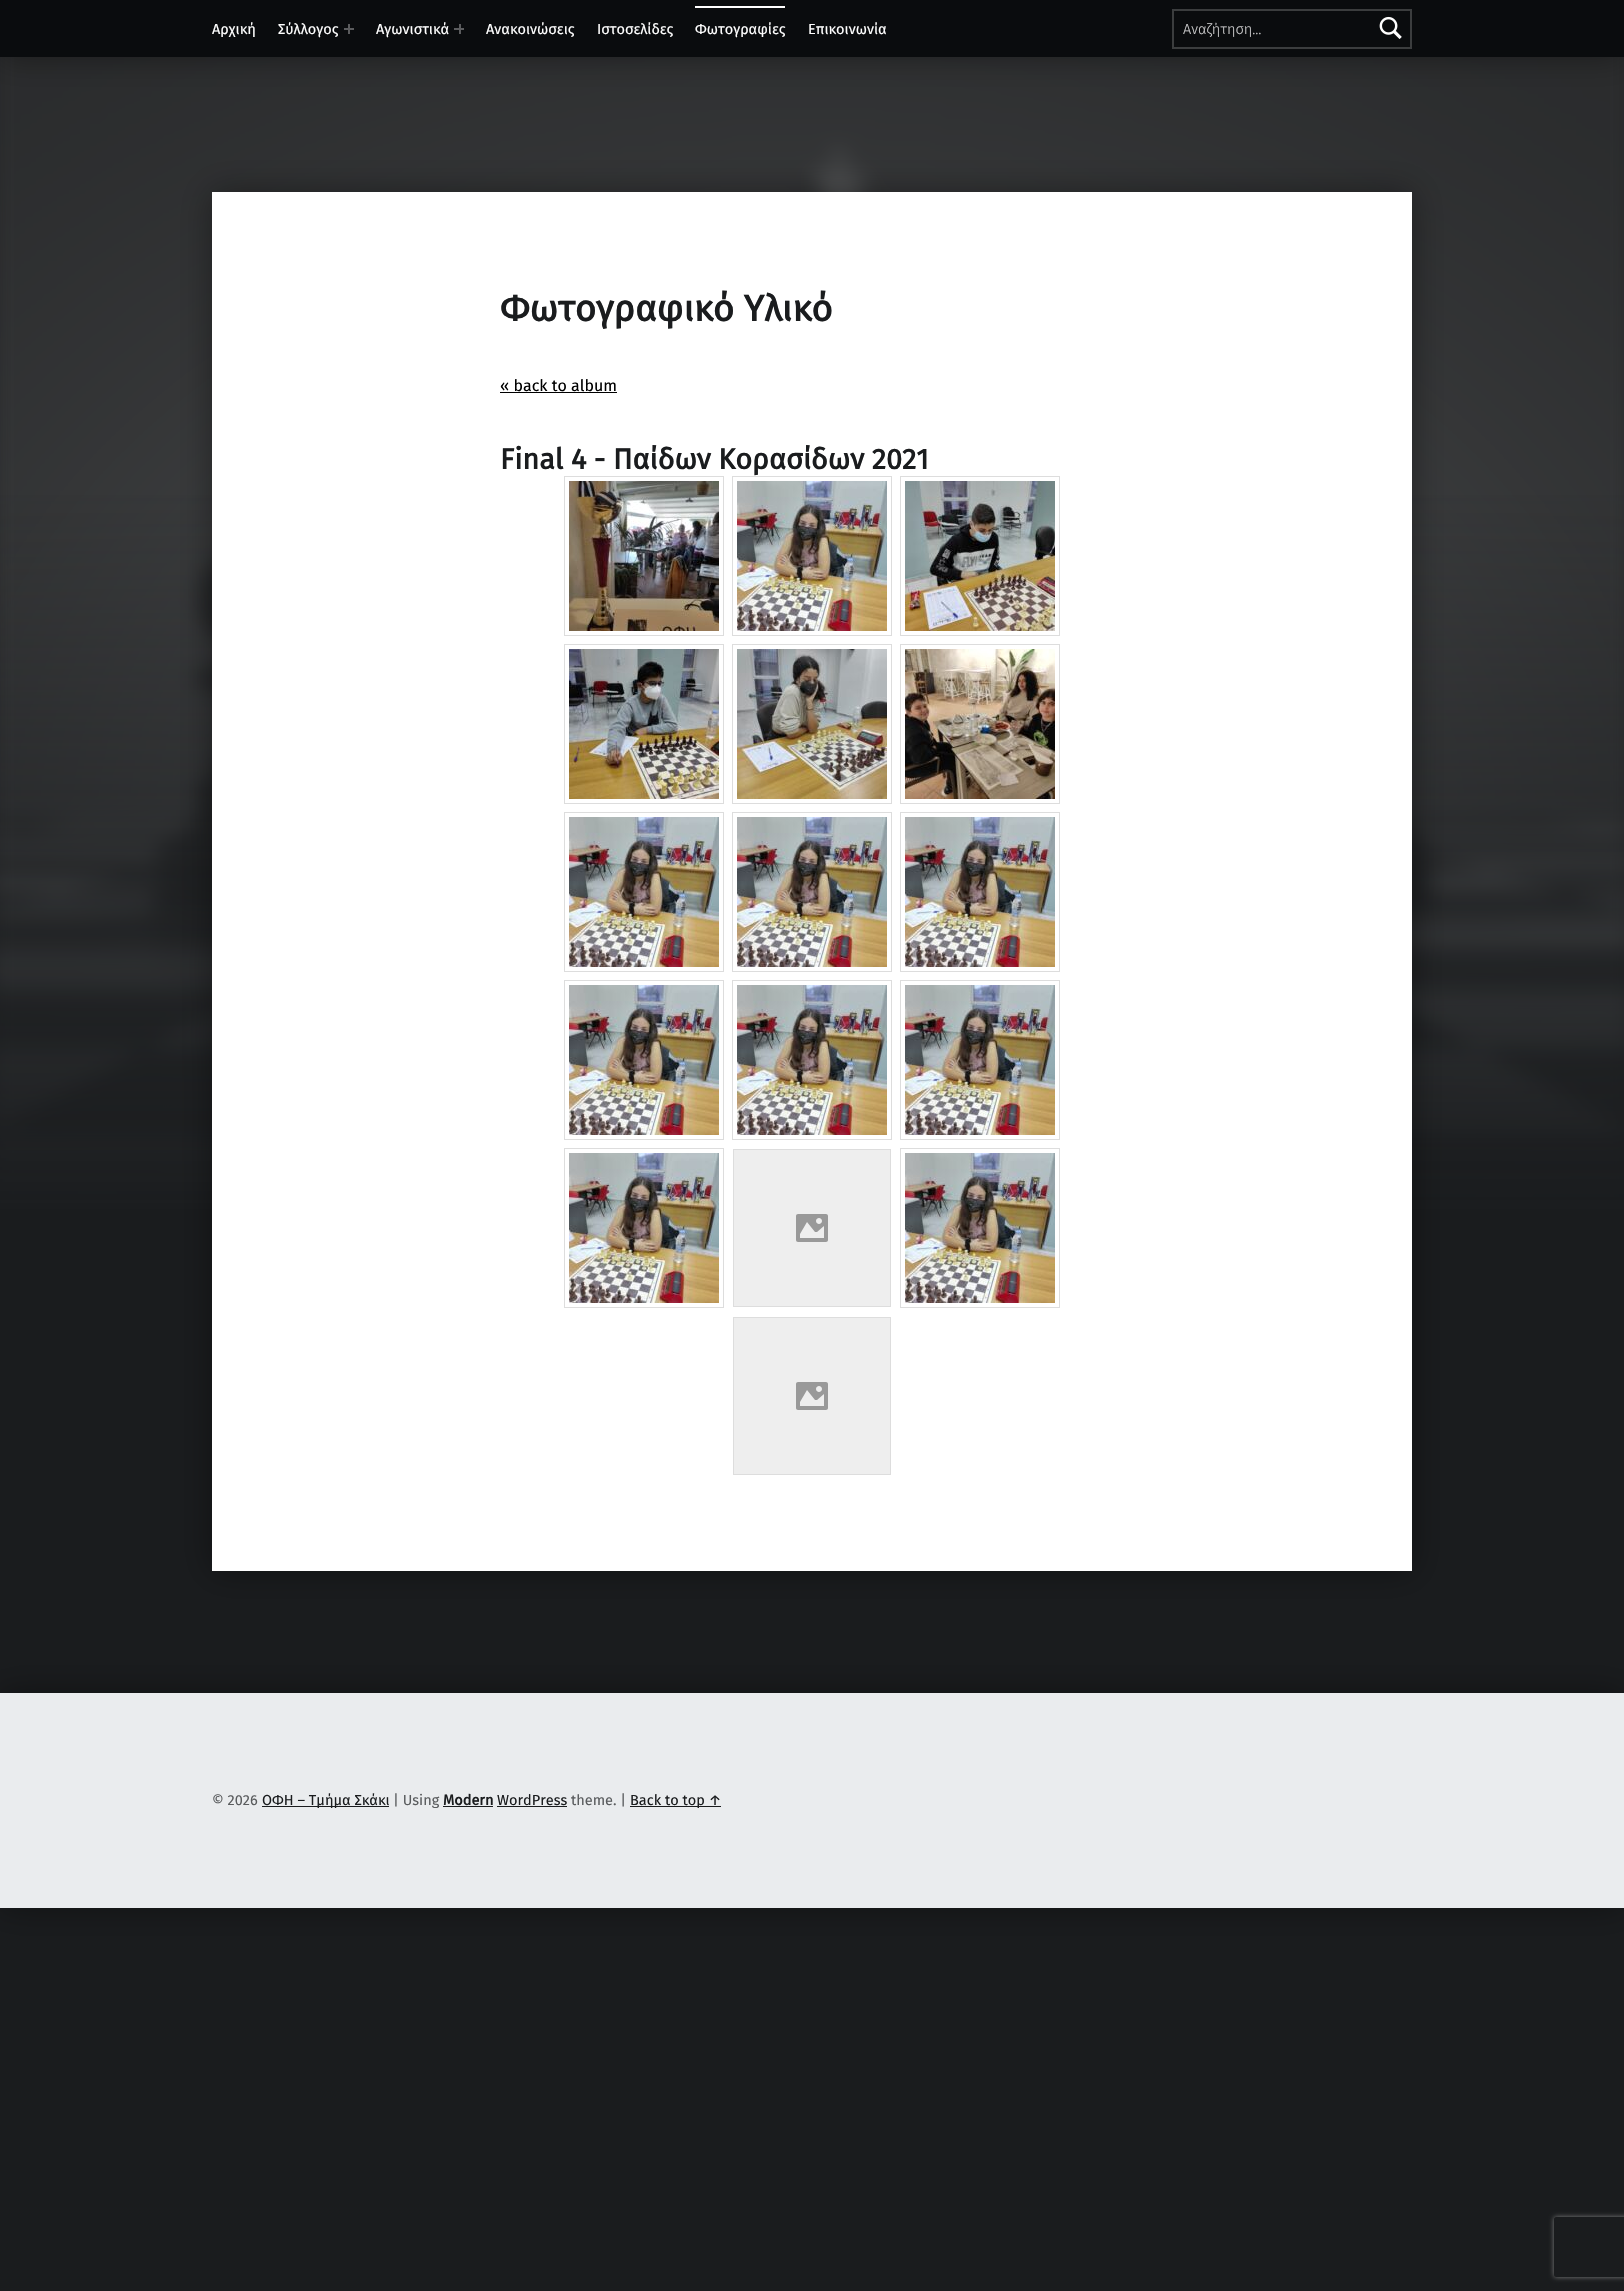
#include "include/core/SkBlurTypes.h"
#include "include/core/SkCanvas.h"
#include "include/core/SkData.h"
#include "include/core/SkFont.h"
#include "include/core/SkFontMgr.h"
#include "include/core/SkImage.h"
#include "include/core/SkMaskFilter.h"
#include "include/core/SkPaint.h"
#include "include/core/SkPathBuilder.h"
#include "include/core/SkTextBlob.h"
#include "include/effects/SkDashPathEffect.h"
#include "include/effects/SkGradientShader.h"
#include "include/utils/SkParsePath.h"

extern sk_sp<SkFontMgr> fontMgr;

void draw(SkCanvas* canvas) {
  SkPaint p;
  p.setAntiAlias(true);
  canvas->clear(SkColorSetRGB(26, 28, 30));
  canvas->drawImageRect(SkImages::DeferredFromEncodedData(SkData::MakeFromFileName("images/2.png")), SkRect::MakeLTRB(0, 57, 1624, 1209), SkSamplingOptions());
  p.setColor(SkColorSetARGB(102, 0, 0, 0));
  p.setMaskFilter(SkMaskFilter::MakeBlur(kNormal_SkBlurStyle, 16));
  canvas->drawRect(SkRect::MakeLTRB(0, 0, 1624, 57), p);
  p.setMaskFilter(nullptr);
  p.setColor(SkColorSetRGB(10, 12, 14));
  canvas->drawRect(SkRect::MakeLTRB(0, 0, 1624, 57), p);
  p.setColor(SkColorSetRGB(91, 92, 94));
  canvas->drawRect(SkRect::MakeLTRB(344, 28, 354, 30), p);
  canvas->drawRect(SkRect::MakeLTRB(348, 24, 350, 34), p);
  canvas->drawRect(SkRect::MakeLTRB(454, 28, 464, 30), p);
  canvas->drawRect(SkRect::MakeLTRB(459, 24, 461, 34), p);
  p.setColor(SK_ColorWHITE);
  canvas->drawRect(SkRect::MakeLTRB(695, 6, 785, 8), p);
  p.setStyle(SkPaint::kStroke_Style);
  p.setStrokeWidth(2);
  p.setColor(SkColorSetRGB(59, 61, 62));
  canvas->drawRect(SkRect::MakeLTRB(1173, 10, 1411, 48), p);
  canvas->drawImageRect(SkImages::DeferredFromEncodedData(SkData::MakeFromFileName("images/1.png")), SkRect::MakeLTRB(1379, 16, 1402, 39), SkSamplingOptions());
  p.setStyle(SkPaint::kFill_Style);
  {
    const SkColor colors[] = {SkColorSetARGB(0, 26, 28, 30), SkColorSetRGB(26, 28, 30)};
    const float stops[] = {0, 1};
    const SkPoint ends[] = {{812, 461}, {812, 1213}};
    p.setShader(SkGradientShader::MakeLinear(ends, colors, stops, 2, SkTileMode::kClamp));
    p.setAlpha(255);
  }
  canvas->drawRect(SkRect::MakeLTRB(0, 495, 1624, 1209), p);
  p.setShader(nullptr);
  p.setColor(SkColorSetARGB(102, 0, 0, 0));
  p.setMaskFilter(SkMaskFilter::MakeBlur(kNormal_SkBlurStyle, 16));
  canvas->drawRect(SkRect::MakeLTRB(212, 192, 1412, 1571), p);
  p.setMaskFilter(nullptr);
  p.setColor(SK_ColorWHITE);
  canvas->drawRect(SkRect::MakeLTRB(212, 192, 1412, 1571), p);
  p.setColor(SK_ColorBLACK);
  canvas->drawRect(SkRect::MakeLTRB(500, 392, 617, 393), p);
  p.setStyle(SkPaint::kStroke_Style);
  p.setStrokeWidth(1);
  p.setColor(SkColorSetRGB(221, 221, 221));
  canvas->drawRect(SkRect::MakeLTRB(564.5f, 476.5f, 723.5f, 635.5f), p);
  canvas->drawImageRect(SkImages::DeferredFromEncodedData(SkData::MakeFromFileName("images/3.png")), SkRect::MakeLTRB(569, 481, 719, 631), SkSamplingOptions());
  canvas->drawRect(SkRect::MakeLTRB(732.5f, 476.5f, 891.5f, 635.5f), p);
  canvas->drawImageRect(SkImages::DeferredFromEncodedData(SkData::MakeFromFileName("images/4.png")), SkRect::MakeLTRB(737, 481, 887, 631), SkSamplingOptions());
  canvas->drawRect(SkRect::MakeLTRB(900.5f, 476.5f, 1059.5f, 635.5f), p);
  canvas->drawImageRect(SkImages::DeferredFromEncodedData(SkData::MakeFromFileName("images/5.png")), SkRect::MakeLTRB(905, 481, 1055, 631), SkSamplingOptions());
  canvas->drawRect(SkRect::MakeLTRB(564.5f, 644.5f, 723.5f, 803.5f), p);
  canvas->drawImageRect(SkImages::DeferredFromEncodedData(SkData::MakeFromFileName("images/6.png")), SkRect::MakeLTRB(569, 649, 719, 799), SkSamplingOptions());
  canvas->drawRect(SkRect::MakeLTRB(732.5f, 644.5f, 891.5f, 803.5f), p);
  canvas->drawImageRect(SkImages::DeferredFromEncodedData(SkData::MakeFromFileName("images/7.png")), SkRect::MakeLTRB(737, 649, 887, 799), SkSamplingOptions());
  canvas->drawRect(SkRect::MakeLTRB(900.5f, 644.5f, 1059.5f, 803.5f), p);
  canvas->drawImageRect(SkImages::DeferredFromEncodedData(SkData::MakeFromFileName("images/8.png")), SkRect::MakeLTRB(905, 649, 1055, 799), SkSamplingOptions());
  canvas->drawRect(SkRect::MakeLTRB(564.5f, 812.5f, 723.5f, 971.5f), p);
  canvas->drawImageRect(SkImages::DeferredFromEncodedData(SkData::MakeFromFileName("images/4.png")), SkRect::MakeLTRB(569, 817, 719, 967), SkSamplingOptions());
  canvas->drawRect(SkRect::MakeLTRB(732.5f, 812.5f, 891.5f, 971.5f), p);
  canvas->drawImageRect(SkImages::DeferredFromEncodedData(SkData::MakeFromFileName("images/4.png")), SkRect::MakeLTRB(737, 817, 887, 967), SkSamplingOptions());
  canvas->drawRect(SkRect::MakeLTRB(900.5f, 812.5f, 1059.5f, 971.5f), p);
  canvas->drawImageRect(SkImages::DeferredFromEncodedData(SkData::MakeFromFileName("images/4.png")), SkRect::MakeLTRB(905, 817, 1055, 967), SkSamplingOptions());
  canvas->drawRect(SkRect::MakeLTRB(564.5f, 980.5f, 723.5f, 1139.5f), p);
  canvas->drawImageRect(SkImages::DeferredFromEncodedData(SkData::MakeFromFileName("images/4.png")), SkRect::MakeLTRB(569, 985, 719, 1135), SkSamplingOptions());
  canvas->drawRect(SkRect::MakeLTRB(732.5f, 980.5f, 891.5f, 1139.5f), p);
  canvas->drawImageRect(SkImages::DeferredFromEncodedData(SkData::MakeFromFileName("images/4.png")), SkRect::MakeLTRB(737, 985, 887, 1135), SkSamplingOptions());
  canvas->drawRect(SkRect::MakeLTRB(900.5f, 980.5f, 1059.5f, 1139.5f), p);
  canvas->drawImageRect(SkImages::DeferredFromEncodedData(SkData::MakeFromFileName("images/4.png")), SkRect::MakeLTRB(905, 985, 1055, 1135), SkSamplingOptions());
  canvas->drawRect(SkRect::MakeLTRB(564.5f, 1148.5f, 723.5f, 1307.5f), p);
  canvas->drawImageRect(SkImages::DeferredFromEncodedData(SkData::MakeFromFileName("images/4.png")), SkRect::MakeLTRB(569, 1153, 719, 1303), SkSamplingOptions());
  p.setStyle(SkPaint::kFill_Style);
  p.setColor(SkColorSetRGB(238, 238, 238));
  canvas->drawRect(SkRect::MakeLTRB(733.5f, 1149.5f, 890.5f, 1306.5f), p);
  p.setStyle(SkPaint::kStroke_Style);
  p.setColor(SkColorSetRGB(221, 221, 221));
  canvas->drawRect(SkRect::MakeLTRB(733.5f, 1149.5f, 890.5f, 1306.5f), p);
  canvas->drawImageRect(SkImages::DeferredFromEncodedData(SkData::MakeFromFileName("images/9.png")), SkRect::MakeLTRB(796, 1214, 828, 1242), SkSamplingOptions());
  canvas->drawRect(SkRect::MakeLTRB(900.5f, 1148.5f, 1059.5f, 1307.5f), p);
  canvas->drawImageRect(SkImages::DeferredFromEncodedData(SkData::MakeFromFileName("images/4.png")), SkRect::MakeLTRB(905, 1153, 1055, 1303), SkSamplingOptions());
  p.setStyle(SkPaint::kFill_Style);
  p.setColor(SkColorSetRGB(238, 238, 238));
  canvas->drawRect(SkRect::MakeLTRB(733.5f, 1317.5f, 890.5f, 1474.5f), p);
  p.setStyle(SkPaint::kStroke_Style);
  p.setColor(SkColorSetRGB(221, 221, 221));
  canvas->drawRect(SkRect::MakeLTRB(733.5f, 1317.5f, 890.5f, 1474.5f), p);
  canvas->drawImageRect(SkImages::DeferredFromEncodedData(SkData::MakeFromFileName("images/9.png")), SkRect::MakeLTRB(796, 1382, 828, 1410), SkSamplingOptions());
  p.setStyle(SkPaint::kFill_Style);
  p.setColor(SkColorSetARGB(102, 0, 0, 0));
  p.setMaskFilter(SkMaskFilter::MakeBlur(kNormal_SkBlurStyle, 16));
  canvas->drawRect(SkRect::MakeLTRB(0, 1693, 1624, 1908), p);
  p.setMaskFilter(nullptr);
  p.setColor(SkColorSetRGB(234, 236, 238));
  canvas->drawRect(SkRect::MakeLTRB(0, 1693, 1624, 1908), p);
  p.setColor(SkColorSetRGB(26, 28, 30));
  canvas->drawRect(SkRect::MakeLTRB(262, 1806, 389, 1807), p);
  canvas->drawRect(SkRect::MakeLTRB(443, 1806, 493, 1807), p);
  canvas->drawRect(SkRect::MakeLTRB(497, 1806, 567, 1807), p);
  canvas->drawRect(SkRect::MakeLTRB(630, 1806, 721, 1807), p);
  canvas->save();
  canvas->clipPath(SkPathBuilder(SkPathFillType::kEvenOdd).moveTo(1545, 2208).lineTo(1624, 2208).lineTo(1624, 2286).lineTo(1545, 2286).close().moveTo(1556, 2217).lineTo(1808, 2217).cubicTo(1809, 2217, 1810, 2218, 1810, 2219).lineTo(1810, 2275).cubicTo(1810, 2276, 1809, 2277, 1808, 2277).lineTo(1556, 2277).cubicTo(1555, 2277, 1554, 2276, 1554, 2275).lineTo(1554, 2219).cubicTo(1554, 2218, 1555, 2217, 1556, 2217).close().detach(), true);
  p.setColor(SkColorSetRGB(128, 128, 128));
  p.setMaskFilter(SkMaskFilter::MakeBlur(kNormal_SkBlurStyle, 2.5f));
  canvas->drawRoundRect(SkRect::MakeLTRB(1554, 2217, 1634, 2277), 2, 2, p);
  p.setMaskFilter(nullptr);
  canvas->restore();
  SkFont font1(fontMgr->matchFamilyStyle("Fira Sans", SkFontStyle::Normal()), 14.5f);
  font1.setSubpixel(true);
  p.setColor(SK_ColorWHITE);
  canvas->drawString("Αρχική", 212, 34, font1, p);
  canvas->drawString("Σύλλογος", 278, 34, font1, p);
  canvas->drawString("Αγωνιστικά", 376, 34, font1, p);
  canvas->drawString("Ανακοινώσεις", 486, 34, font1, p);
  canvas->drawString("Ιστοσελίδες", 597, 34, font1, p);
  canvas->drawString("Φωτογραφίες", 695, 34, font1, p);
  canvas->drawString("Επικοινωνία", 808, 34, font1, p);
  SkFont font2(fontMgr->matchFamilyStyle("Fira Sans", SkFontStyle(300, SkFontStyle::kNormal_Width, SkFontStyle::kUpright_Slant)), 14.5f);
  font2.setSubpixel(true);
  p.setColor(SkColorSetRGB(206, 206, 207));
  canvas->drawString("Αναζήτηση…", 1183, 34, font2, p);
  SkFont font3(fontMgr->matchFamilyStyle("Fira Sans", SkFontStyle::Bold()), 36.5f);
  font3.setSubpixel(true);
  p.setColor(SkColorSetRGB(26, 28, 30));
  canvas->drawString("Φωτογραφικό Υλικό", 500, 321, font3, p);
  SkFont font4(fontMgr->matchFamilyStyle("Fira Sans", SkFontStyle::Normal()), 16);
  font4.setSubpixel(true);
  p.setColor(SK_ColorBLACK);
  canvas->drawString("« back to album", 500, 391, font4, p);
  SkFont font5(fontMgr->matchFamilyStyle("Fira Sans", SkFontStyle::Bold()), 28.8f);
  font5.setSubpixel(true);
  p.setColor(SkColorSetRGB(26, 28, 30));
  canvas->drawString("Final 4 - Παίδων Κορασίδων 2021", 500, 469, font5, p);
  p.setColor(SkColorSetRGB(90, 92, 94));
  canvas->drawString("© 2026", 212, 1805, font1, p);
  p.setColor(SkColorSetRGB(26, 28, 30));
  canvas->drawString("ΟΦΗ – Τμήμα Σκάκι", 262, 1805, font1, p);
  p.setColor(SkColorSetRGB(90, 92, 94));
  canvas->drawString("| Using", 393, 1805, font1, p);
  SkFont font6(fontMgr->matchFamilyStyle("Fira Sans", SkFontStyle::Bold()), 14.5f);
  font6.setSubpixel(true);
  p.setColor(SkColorSetRGB(26, 28, 30));
  canvas->drawString("Modern", 443, 1805, font6, p);
  canvas->drawString("WordPress", 497, 1805, font1, p);
  p.setColor(SkColorSetRGB(90, 92, 94));
  canvas->drawString("theme. |", 571, 1805, font1, p);
  p.setColor(SkColorSetRGB(26, 28, 30));
  canvas->drawString("Back to top ↑", 630, 1805, font1, p);
}
